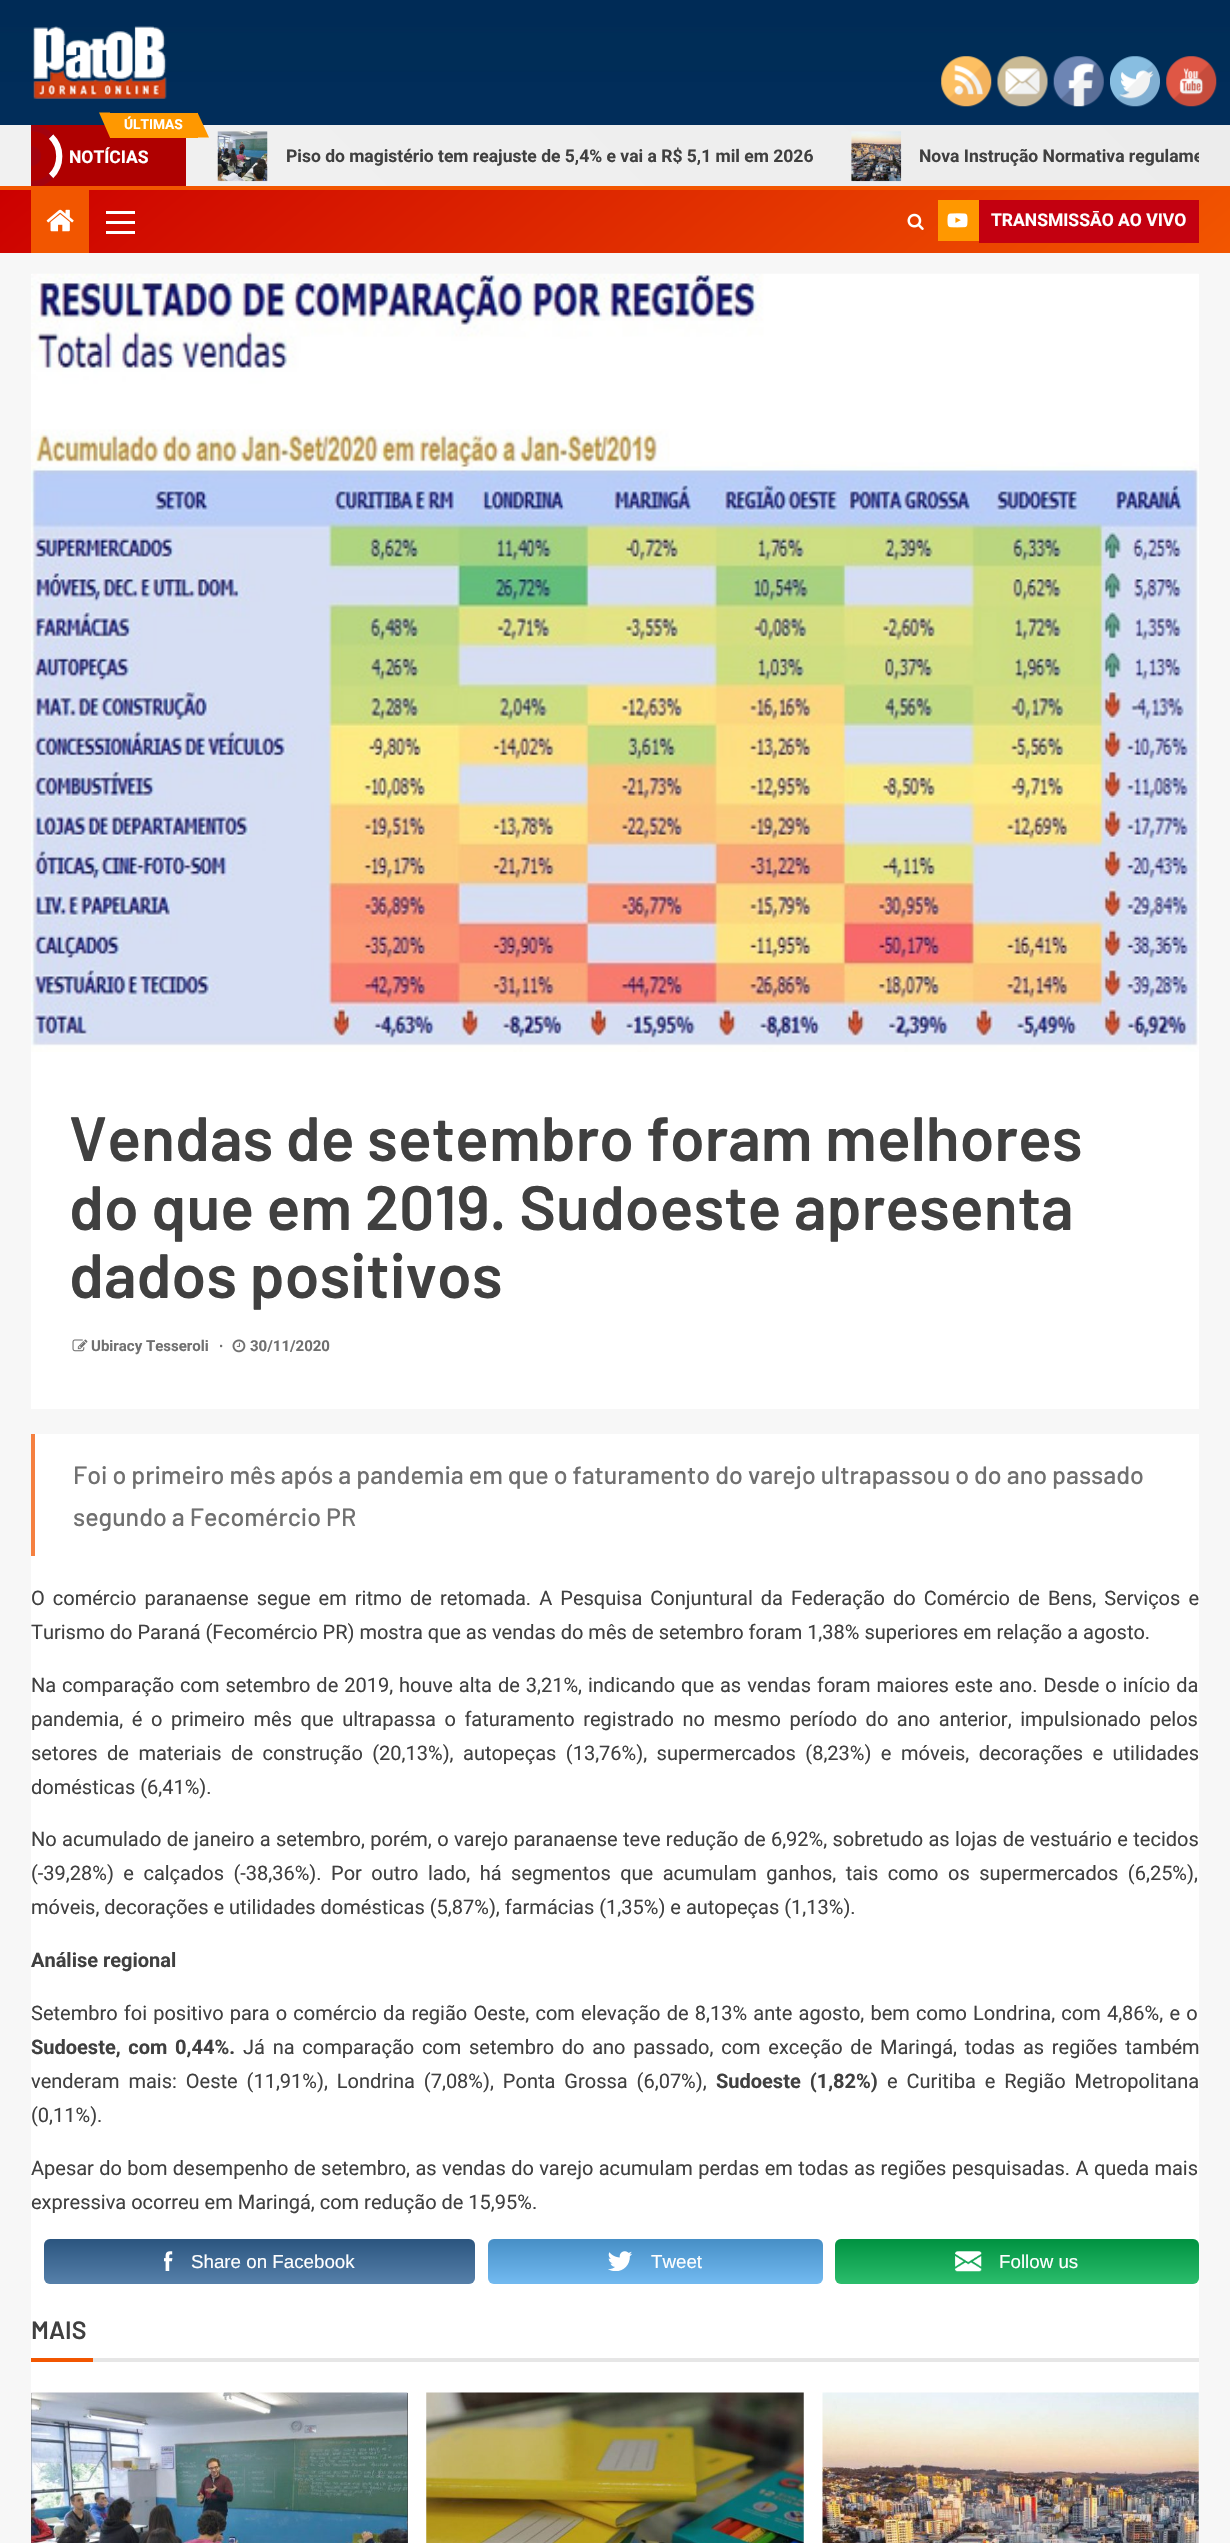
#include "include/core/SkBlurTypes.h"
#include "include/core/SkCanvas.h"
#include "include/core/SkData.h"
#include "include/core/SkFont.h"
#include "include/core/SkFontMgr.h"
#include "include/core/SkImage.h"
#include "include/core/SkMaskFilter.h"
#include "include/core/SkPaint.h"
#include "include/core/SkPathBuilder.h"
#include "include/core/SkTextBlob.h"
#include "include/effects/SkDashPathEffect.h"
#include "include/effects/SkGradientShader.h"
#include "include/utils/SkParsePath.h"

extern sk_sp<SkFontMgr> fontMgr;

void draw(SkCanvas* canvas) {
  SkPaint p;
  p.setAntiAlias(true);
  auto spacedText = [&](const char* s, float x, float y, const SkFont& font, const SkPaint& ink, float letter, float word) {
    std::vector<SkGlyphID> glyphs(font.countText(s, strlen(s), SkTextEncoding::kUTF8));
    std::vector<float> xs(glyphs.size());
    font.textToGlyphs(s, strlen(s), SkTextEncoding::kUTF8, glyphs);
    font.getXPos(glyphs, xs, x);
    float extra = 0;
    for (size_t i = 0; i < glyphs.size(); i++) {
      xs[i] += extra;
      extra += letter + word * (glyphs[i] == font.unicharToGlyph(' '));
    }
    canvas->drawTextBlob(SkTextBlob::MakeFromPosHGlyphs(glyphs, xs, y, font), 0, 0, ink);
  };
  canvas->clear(SkColorSetRGB(247, 247, 247));
  canvas->drawImageRect(SkImages::DeferredFromEncodedData(SkData::MakeFromFileName("images/6.png")), SkRect::MakeLTRB(0, 0, 1230, 125), SkSamplingOptions());
  canvas->drawImageRect(SkImages::DeferredFromEncodedData(SkData::MakeFromFileName("images/1.png")), SkRect::MakeLTRB(941, 56, 992, 107), SkSamplingOptions());
  canvas->drawImageRect(SkImages::DeferredFromEncodedData(SkData::MakeFromFileName("images/2.png")), SkRect::MakeLTRB(997, 56, 1048, 107), SkSamplingOptions());
  canvas->drawImageRect(SkImages::DeferredFromEncodedData(SkData::MakeFromFileName("images/3.png")), SkRect::MakeLTRB(1053, 56, 1104, 107), SkSamplingOptions());
  canvas->drawImageRect(SkImages::DeferredFromEncodedData(SkData::MakeFromFileName("images/4.png")), SkRect::MakeLTRB(1110, 56, 1160, 107), SkSamplingOptions());
  canvas->drawImageRect(SkImages::DeferredFromEncodedData(SkData::MakeFromFileName("images/5.png")), SkRect::MakeLTRB(1166, 56, 1217, 107), SkSamplingOptions());
  canvas->drawImageRect(SkImages::DeferredFromEncodedData(SkData::MakeFromFileName("images/7.png")), SkRect::MakeLTRB(33, 26, 167, 99), SkSamplingOptions());
  {
    const SkColor colors[] = {SkColorSetRGB(241, 241, 241), SkColorSetRGB(236, 236, 236)};
    const float stops[] = {0, 1};
    const SkPoint ends[] = {{292, 478}, {938, -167}};
    p.setShader(SkGradientShader::MakeLinear(ends, colors, stops, 2, SkTileMode::kClamp));
    p.setAlpha(255);
  }
  canvas->drawRect(SkRect::MakeLTRB(0, 125, 1230, 186), p);
  p.setShader(nullptr);
  p.setColor(SkColorSetRGB(175, 0, 0));
  canvas->drawRect(SkRect::MakeLTRB(31, 125, 186, 186), p);
  p.setColor(SkColorSetRGB(255, 152, 0));
  canvas->drawRect(SkRect::MakeLTRB(110, 113, 198, 138), p);
  canvas->drawPath(SkPathBuilder().moveTo(99, 112.5f).lineTo(110, 112.5f).lineTo(110, 137.5f).close().detach(), p);
  canvas->drawPath(SkPathBuilder().moveTo(209, 137.5f).lineTo(197.5f, 137.5f).lineTo(197.5f, 112.5f).close().detach(), p);
  p.setStyle(SkPaint::kStroke_Style);
  p.setStrokeWidth(6.2f);
  p.setColor(SK_ColorWHITE);
  canvas->drawPath(SkPathBuilder().moveTo(51, 136.5f).cubicTo(62, 147, 62, 165.5f, 51, 176).detach(), p);
  canvas->save();
  canvas->clipRect(SkRect::MakeLTRB(31, 125, 186, 186));
  p.setColor(SkColorSetRGB(162, 2, 15));
  canvas->drawPath(SkPathBuilder().moveTo(11.5f, 136.5f).cubicTo(22, 125.5f, 40.5f, 125.5f, 51, 136.5f).moveTo(51, 176).cubicTo(40.5f, 187, 22, 187, 11.5f, 176).detach(), p);
  canvas->restore();
  p.setStyle(SkPaint::kFill_Style);
  canvas->drawPath(SkPathBuilder().moveTo(31, 146).cubicTo(36.5f, 146, 41, 150.5f, 41, 156).cubicTo(41, 161.5f, 36.5f, 166, 31, 166).close().detach(), p);
  canvas->drawImageRect(SkImages::DeferredFromEncodedData(SkData::MakeFromFileName("images/8.png")), SkRect::MakeLTRB(217, 131, 268, 182), SkSamplingOptions());
  canvas->drawImageRect(SkImages::DeferredFromEncodedData(SkData::MakeFromFileName("images/9.png")), SkRect::MakeLTRB(851, 131, 902, 182), SkSamplingOptions());
  {
    const SkColor colors[] = {SkColorSetRGB(204, 0, 0), SkColorSetRGB(242, 86, 0)};
    const float stops[] = {0, 1};
    const SkPoint ends[] = {{346, -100}, {884, 542}};
    p.setShader(SkGradientShader::MakeLinear(ends, colors, stops, 2, SkTileMode::kClamp));
    p.setAlpha(255);
  }
  canvas->drawRect(SkRect::MakeLTRB(0, 190, 1230, 253), p);
  p.setShader(nullptr);
  p.setColor(SkColorSetRGB(242, 86, 0));
  canvas->drawRect(SkRect::MakeLTRB(0, 186, 1230, 190), p);
  canvas->drawRect(SkRect::MakeLTRB(31, 190, 89, 253), p);
  canvas->drawImageRect(SkImages::DeferredFromEncodedData(SkData::MakeFromFileName("images/10.png")), SkRect::MakeLTRB(46, 209, 74, 232), SkSamplingOptions());
  p.setColor(SK_ColorWHITE);
  canvas->drawRect(SkRect::MakeLTRB(106, 221, 135, 224), p);
  canvas->drawRect(SkRect::MakeLTRB(106, 211, 135, 214), p);
  canvas->drawRect(SkRect::MakeLTRB(106, 231, 135, 234), p);
  canvas->drawImageRect(SkImages::DeferredFromEncodedData(SkData::MakeFromFileName("images/11.png")), SkRect::MakeLTRB(907, 213, 924, 230), SkSamplingOptions());
  p.setColor(SkColorSetRGB(255, 152, 0));
  canvas->drawRect(SkRect::MakeLTRB(938, 200, 979, 241), p);
  canvas->drawImageRect(SkImages::DeferredFromEncodedData(SkData::MakeFromFileName("images/12.png")), SkRect::MakeLTRB(947, 213, 968, 228), SkSamplingOptions());
  p.setColor(SkColorSetRGB(195, 0, 16));
  canvas->drawRect(SkRect::MakeLTRB(979, 200, 1199, 243), p);
  p.setColor(SK_ColorWHITE);
  canvas->drawRect(SkRect::MakeLTRB(31, 274, 1199, 1409), p);
  canvas->drawImageRect(SkImages::DeferredFromEncodedData(SkData::MakeFromFileName("images/13.png")), SkRect::MakeLTRB(31, 273, 1199, 1052), SkSamplingOptions());
  canvas->drawImageRect(SkImages::DeferredFromEncodedData(SkData::MakeFromFileName("images/14.png")), SkRect::MakeLTRB(72, 1339, 88, 1352), SkSamplingOptions());
  canvas->drawImageRect(SkImages::DeferredFromEncodedData(SkData::MakeFromFileName("images/15.png")), SkRect::MakeLTRB(232, 1339, 246, 1353), SkSamplingOptions());
  canvas->drawRect(SkRect::MakeLTRB(31, 1434, 1199, 2543), p);
  p.setColor(SkColorSetRGB(245, 128, 64));
  canvas->drawRect(SkRect::MakeLTRB(31, 1434, 35, 1556), p);
  p.setColor(SkColorSetRGB(51, 102, 153));
  canvas->drawRoundRect(SkRect::MakeLTRB(44, 2239, 475, 2284), 6, 6, p);
  {
    const SkColor colors[] = {SkColorSetARGB(43, 0, 0, 0), SkColorSetARGB(43, 255, 255, 255)};
    const float stops[] = {0, 1};
    const SkPoint ends[] = {{259, 2239}, {259, 2284}};
    p.setShader(SkGradientShader::MakeLinear(ends, colors, stops, 2, SkTileMode::kClamp));
    p.setAlpha(255);
  }
  canvas->drawRoundRect(SkRect::MakeLTRB(44, 2239, 475, 2284), 6, 6, p);
  canvas->drawImageRect(SkImages::DeferredFromEncodedData(SkData::MakeFromFileName("images/16.png")), SkRect::MakeLTRB(164, 2251, 173, 2271), SkSamplingOptions());
  p.setShader(nullptr);
  p.setColor(SkColorSetRGB(85, 172, 238));
  canvas->drawRoundRect(SkRect::MakeLTRB(488, 2239, 823, 2284), 6, 6, p);
  {
    const SkColor colors[] = {SkColorSetARGB(43, 0, 0, 0), SkColorSetARGB(43, 255, 255, 255)};
    const float stops[] = {0, 1};
    const SkPoint ends[] = {{655, 2239}, {655, 2284}};
    p.setShader(SkGradientShader::MakeLinear(ends, colors, stops, 2, SkTileMode::kClamp));
    p.setAlpha(255);
  }
  canvas->drawRoundRect(SkRect::MakeLTRB(488, 2239, 823, 2284), 6, 6, p);
  canvas->drawImageRect(SkImages::DeferredFromEncodedData(SkData::MakeFromFileName("images/17.png")), SkRect::MakeLTRB(608, 2251, 633, 2271), SkSamplingOptions());
  p.setShader(nullptr);
  p.setColor(SkColorSetRGB(0, 176, 78));
  canvas->drawRoundRect(SkRect::MakeLTRB(835, 2239, 1199, 2284), 6, 6, p);
  {
    const SkColor colors[] = {SkColorSetARGB(43, 0, 0, 0), SkColorSetARGB(43, 255, 255, 255)};
    const float stops[] = {0, 1};
    const SkPoint ends[] = {{1017, 2239}, {1017, 2284}};
    p.setShader(SkGradientShader::MakeLinear(ends, colors, stops, 2, SkTileMode::kClamp));
    p.setAlpha(255);
  }
  canvas->drawRoundRect(SkRect::MakeLTRB(835, 2239, 1199, 2284), 6, 6, p);
  canvas->drawImageRect(SkImages::DeferredFromEncodedData(SkData::MakeFromFileName("images/18.png")), SkRect::MakeLTRB(955, 2251, 982, 2272), SkSamplingOptions());
  p.setShader(nullptr);
  p.setColor(SkColorSetRGB(242, 86, 0));
  canvas->drawRect(SkRect::MakeLTRB(31, 2358, 93, 2362), p);
  p.setColor(SkColorSetRGB(230, 230, 230));
  canvas->drawRect(SkRect::MakeLTRB(93, 2358, 1199, 2362), p);
  p.setColor(SkColorSetRGB(64, 64, 64));
  canvas->drawRect(SkRect::MakeLTRB(31, 2393, 408, 2543), p);
  canvas->drawImageRect(SkImages::DeferredFromEncodedData(SkData::MakeFromFileName("images/19.png")), SkRect::MakeLTRB(31, 2392, 408, 2543), SkSamplingOptions());
  canvas->drawImageRect(SkImages::DeferredFromEncodedData(SkData::MakeFromFileName("images/20.png")), SkRect::MakeLTRB(426, 2392, 804, 2543), SkSamplingOptions());
  canvas->drawImageRect(SkImages::DeferredFromEncodedData(SkData::MakeFromFileName("images/21.png")), SkRect::MakeLTRB(822, 2392, 1199, 2543), SkSamplingOptions());
  SkFont font1(fontMgr->matchFamilyStyle("Roboto", SkFontStyle::Bold()), 13.75f);
  font1.setSubpixel(true);
  p.setColor(SK_ColorWHITE);
  canvas->drawString("ÚLTIMAS", 124, 129, font1, p);
  SkFont font2(fontMgr->matchFamilyStyle("Roboto", SkFontStyle::Bold()), 17.5f);
  font2.setSubpixel(true);
  canvas->drawString("NOTÍCIAS", 69, 163, font2, p);
  p.setColor(SkColorSetRGB(64, 64, 64));
  canvas->drawString("Piso do magistério tem reajuste de 5,4% e vai a R$ 5,1 mil em 2026", 286, 162, font2, p);
  canvas->save();
  canvas->clipRect(SkRect::MakeLTRB(193, 131, 1199, 181));
  canvas->drawString("Nova Instrução Normativa regulame", 919, 162, font2, p);
  canvas->restore();
  p.setColor(SK_ColorWHITE);
  canvas->drawString("TRANSMISSĀO AO VIVO", 991, 226, font2, p);
  SkFont font3(fontMgr->matchFamilyStyle("Barlow", SkFontStyle(600, SkFontStyle::kNormal_Width, SkFontStyle::kUpright_Slant)), 62.5f);
  font3.setSubpixel(true);
  p.setColor(SkColorSetRGB(64, 64, 64));
  canvas->drawString("Vendas de setembro foram melhores", 69, 1161, font3, p);
  canvas->drawString("do que em 2019. Sudoeste apresenta", 69, 1230, font3, p);
  canvas->drawString("dados positivos", 69, 1298, font3, p);
  SkFont font4(fontMgr->matchFamilyStyle("Roboto", SkFontStyle::Bold()), 15);
  font4.setSubpixel(true);
  p.setColor(SkColorSetRGB(112, 112, 112));
  canvas->drawString("Ubiracy Tesseroli", 91, 1351, font4, p);
  SkFont font5(fontMgr->matchFamilyStyle("Liberation Sans", SkFontStyle::Bold()), 15);
  font5.setSubpixel(true);
  canvas->drawString("∙", 219, 1351, font5, p);
  canvas->drawString("30/11/2020", 250, 1351, font4, p);
  SkFont font6(fontMgr->matchFamilyStyle("Barlow", SkFontStyle(500, SkFontStyle::kNormal_Width, SkFontStyle::kUpright_Slant)), 25);
  font6.setSubpixel(true);
  canvas->drawString("Foi o primeiro mês após a pandemia em que o faturamento do varejo ultrapassou o do ano passado", 73, 1484, font6, p);
  canvas->drawString("segundo a Fecomércio PR", 73, 1526, font6, p);
  SkFont font7(fontMgr->matchFamilyStyle("Roboto", SkFontStyle::Normal()), 20);
  font7.setSubpixel(true);
  p.setColor(SkColorSetRGB(64, 64, 64));
  spacedText("O comércio paranaense segue em ritmo de retomada. A Pesquisa Conjuntural da Federação do Comércio de Bens, Serviços e", 31, 1605, font7, p, 0, 3.1f);
  canvas->drawString("Turismo do Paraná (Fecomércio PR) mostra que as vendas do mês de setembro foram 1,38% superiores em relação a agosto.", 31, 1639, font7, p);
  spacedText("Na comparação com setembro de 2019, houve alta de 3,21%, indicando que as vendas foram maiores este ano. Desde o início da", 31, 1692, font7, p, 0, 1);
  spacedText("pandemia, é o primeiro mês que ultrapassa o faturamento registrado no mesmo período do ano anterior, impulsionado pelos", 31, 1726, font7, p, 0, 3.6f);
  spacedText("setores de materiais de construção (20,13%), autopeças (13,76%), supermercados (8,23%) e móveis, decorações e utilidades", 31, 1760, font7, p, 0, 4.5f);
  canvas->drawString("domésticas (6,41%).", 31, 1794, font7, p);
  spacedText("No acumulado de janeiro a setembro, porém, o varejo paranaense teve redução de 6,92%, sobretudo as lojas de vestuário e tecidos", 31, 1846, font7, p, 0, 0.4f);
  spacedText("(-39,28%) e calçados (-38,36%). Por outro lado, há segmentos que acumulam ganhos, tais como os supermercados (6,25%),", 31, 1880, font7, p, 0, 4.5f);
  canvas->drawString("móveis, decorações e utilidades domésticas (5,87%), farmácias (1,35%) e autopeças (1,13%).", 31, 1914, font7, p);
  SkFont font8(fontMgr->matchFamilyStyle("Roboto", SkFontStyle::Bold()), 20);
  font8.setSubpixel(true);
  canvas->drawString("Análise regional", 31, 1967, font8, p);
  spacedText("Setembro foi positivo para o comércio da região Oeste, com elevação de 8,13% ante agosto, bem como Londrina, com 4,86%, e o", 31, 2020, font7, p, 0, 1.25f);
  spacedText("Sudoeste, com 0,44%.", 31, 2054, font8, p, 0, 2.75f);
  spacedText("Já na comparação com setembro do ano passado, com exceção de Maringá, todas as regiões também", 243, 2054, font7, p, 0, 2.75f);
  spacedText("venderam mais: Oeste (11,91%), Londrina (7,08%), Ponta Grossa (6,07%),", 31, 2088, font7, p, 0, 4);
  spacedText("Sudoeste (1,82%)", 716, 2088, font8, p, 0, 4);
  spacedText("e Curitiba e Região Metropolitana", 887, 2088, font7, p, 0, 4);
  canvas->drawString("(0,11%).", 31, 2122, font7, p);
  spacedText("Apesar do bom desempenho de setembro, as vendas do varejo acumulam perdas em todas as regiões pesquisadas. A queda mais", 31, 2175, font7, p, 0, 0.4f);
  canvas->drawString("expressiva ocorreu em Maringá, com redução de 15,95%.", 31, 2209, font7, p);
  SkFont font9(fontMgr->matchFamilyStyle("Liberation Sans", SkFontStyle::Normal()), 18.75f);
  font9.setSubpixel(true);
  p.setColor(SK_ColorWHITE);
  canvas->drawString("Share on Facebook", 191, 2268, font9, p);
  canvas->drawString("Tweet", 651, 2268, font9, p);
  canvas->drawString("Follow us", 999, 2268, font9, p);
  SkFont font10(fontMgr->matchFamilyStyle("Barlow", SkFontStyle(600, SkFontStyle::kNormal_Width, SkFontStyle::kUpright_Slant)), 25);
  font10.setSubpixel(true);
  p.setColor(SkColorSetRGB(64, 64, 64));
  canvas->drawString("MAIS", 31, 2339, font10, p);
}
